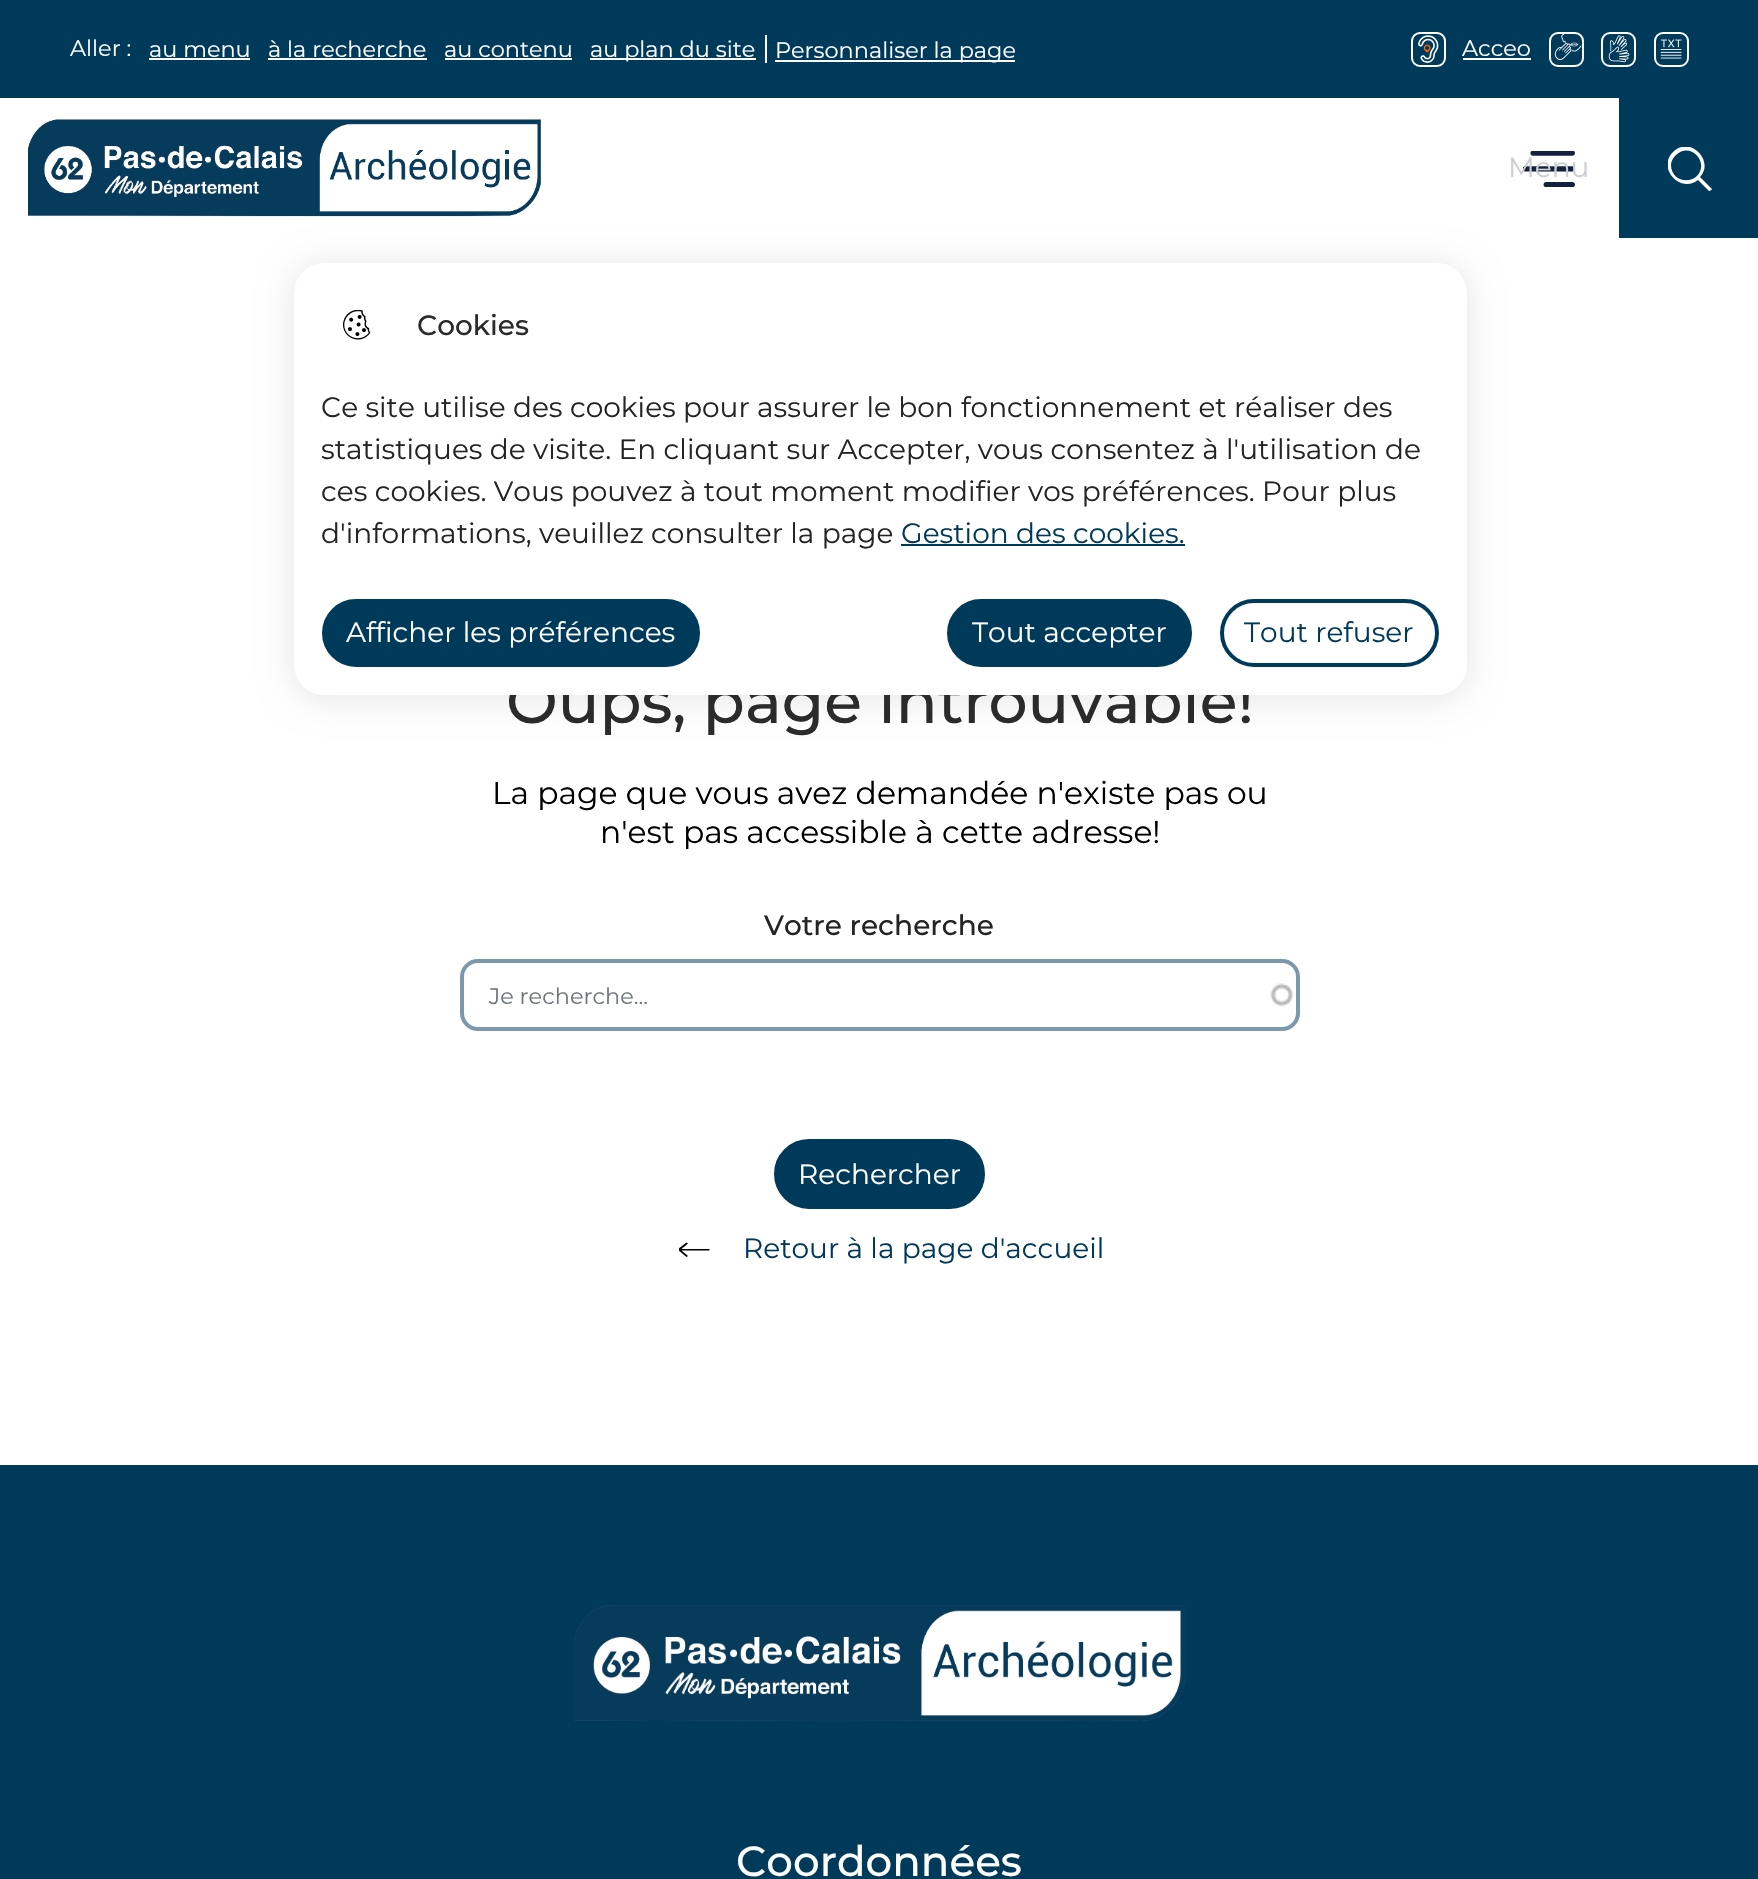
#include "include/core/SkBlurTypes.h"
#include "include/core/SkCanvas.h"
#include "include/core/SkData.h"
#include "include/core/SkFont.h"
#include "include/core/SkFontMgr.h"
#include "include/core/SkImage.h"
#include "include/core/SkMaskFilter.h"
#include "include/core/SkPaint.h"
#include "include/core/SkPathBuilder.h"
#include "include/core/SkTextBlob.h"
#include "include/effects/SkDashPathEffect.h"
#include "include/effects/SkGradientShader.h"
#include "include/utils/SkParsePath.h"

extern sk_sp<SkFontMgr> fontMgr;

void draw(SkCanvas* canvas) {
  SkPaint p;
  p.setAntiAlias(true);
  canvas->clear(SK_ColorWHITE);
  p.setColor(SkColorSetRGB(0, 58, 91));
  canvas->drawRect(SkRect::MakeLTRB(0, 0, 1758, 98), p);
  p.setColor(SK_ColorWHITE);
  canvas->drawRect(SkRect::MakeLTRB(765, 35, 767, 63), p);
  canvas->drawRect(SkRect::MakeLTRB(149, 58, 250, 60), p);
  canvas->drawRect(SkRect::MakeLTRB(268, 58, 427, 60), p);
  canvas->drawRect(SkRect::MakeLTRB(445, 58, 572, 60), p);
  canvas->drawRect(SkRect::MakeLTRB(590, 58, 756, 60), p);
  canvas->drawRect(SkRect::MakeLTRB(775, 60, 1015, 62), p);
  canvas->drawImageRect(SkImages::DeferredFromEncodedData(SkData::MakeFromFileName("images/1.png")), SkRect::MakeLTRB(1418, 35, 1439, 63), SkSamplingOptions());
  p.setStyle(SkPaint::kStroke_Style);
  p.setStrokeWidth(2);
  canvas->drawRoundRect(SkRect::MakeLTRB(1412, 33, 1445, 66), 8, 8, p);
  p.setStyle(SkPaint::kFill_Style);
  canvas->drawRect(SkRect::MakeLTRB(1463, 58, 1531, 60), p);
  canvas->drawImageRect(SkImages::DeferredFromEncodedData(SkData::MakeFromFileName("images/2.png")), SkRect::MakeLTRB(1554, 34, 1582, 60), SkSamplingOptions());
  p.setStyle(SkPaint::kStroke_Style);
  canvas->drawRoundRect(SkRect::MakeLTRB(1550, 33, 1583, 66), 8, 8, p);
  canvas->drawImageRect(SkImages::DeferredFromEncodedData(SkData::MakeFromFileName("images/3.png")), SkRect::MakeLTRB(1608, 35, 1630, 63), SkSamplingOptions());
  canvas->drawRoundRect(SkRect::MakeLTRB(1602, 33, 1635, 66), 8, 8, p);
  canvas->drawImageRect(SkImages::DeferredFromEncodedData(SkData::MakeFromFileName("images/4.png")), SkRect::MakeLTRB(1660, 39, 1682, 59), SkSamplingOptions());
  canvas->drawRoundRect(SkRect::MakeLTRB(1655, 33, 1688, 66), 8, 8, p);
  canvas->drawImageRect(SkImages::DeferredFromEncodedData(SkData::MakeFromFileName("images/5.png")), SkRect::MakeLTRB(28, 119, 541, 217), SkSamplingOptions());
  canvas->drawImageRect(SkImages::DeferredFromEncodedData(SkData::MakeFromFileName("images/6.png")), SkRect::MakeLTRB(1523, 151, 1575, 187), SkSamplingOptions());
  p.setStyle(SkPaint::kFill_Style);
  p.setColor(SkColorSetRGB(0, 58, 91));
  canvas->drawRect(SkRect::MakeLTRB(1619, 98, 1758, 238), p);
  canvas->save();
  canvas->clipRect(SkRect::MakeLTRB(1668, 147, 1712, 191));
  p.setColor(SK_ColorWHITE);
  canvas->drawPath(SkPathBuilder(SkPathFillType::kEvenOdd).moveTo(1711, 188).lineTo(1700, 177).cubicTo(1715, 161, 1690, 135, 1673, 152).cubicTo(1656, 169, 1682, 194, 1698, 180).lineTo(1709, 191).cubicTo(1711, 191, 1713, 189, 1711, 188).close().moveTo(1671, 165).cubicTo(1671, 161, 1673, 158, 1676, 155).cubicTo(1690, 141, 1710, 162, 1697, 176).cubicTo(1687, 185, 1671, 179, 1671, 165).close().detach(), p);
  canvas->restore();
  canvas->drawImageRect(SkImages::DeferredFromEncodedData(SkData::MakeFromFileName("images/7.png")), SkRect::MakeLTRB(1270, 983, 1294, 1007), SkSamplingOptions());
  p.setStyle(SkPaint::kStroke_Style);
  p.setStrokeWidth(4);
  p.setColor(SkColorSetRGB(123, 152, 173));
  canvas->drawRoundRect(SkRect::MakeLTRB(462, 961, 1298, 1029), 16, 16, p);
  p.setStyle(SkPaint::kFill_Style);
  p.setColor(SkColorSetRGB(0, 58, 91));
  canvas->drawRoundRect(SkRect::MakeLTRB(776, 1141, 983, 1207), 33, 33, p);
  p.setStyle(SkPaint::kStroke_Style);
  canvas->drawRoundRect(SkRect::MakeLTRB(776, 1141, 983, 1207), 33, 33, p);
  canvas->save();
  canvas->clipRect(SkRect::MakeLTRB(679, 1241, 711, 1257));
  p.setStyle(SkPaint::kFill_Style);
  p.setColor(SK_ColorBLACK);
  canvas->drawPath(SkPathBuilder(SkPathFillType::kEvenOdd).moveTo(709.5f, 1249).lineTo(681.5f, 1249).lineTo(688, 1243.5f).lineTo(686.5f, 1242.5f).lineTo(677.5f, 1249.5f).lineTo(686.5f, 1257).lineTo(688, 1256).lineTo(681.5f, 1250.5f).lineTo(709.5f, 1250.5f).close().detach(), p);
  canvas->restore();
  p.setColor(SkColorSetRGB(0, 58, 91));
  canvas->drawRect(SkRect::MakeLTRB(0, 1465, 1758, 1879), p);
  canvas->drawImageRect(SkImages::DeferredFromEncodedData(SkData::MakeFromFileName("images/8.png")), SkRect::MakeLTRB(574, 1604, 1185, 1722), SkSamplingOptions());
  p.setColor(SkColorSetARGB(26, 0, 0, 0));
  p.setMaskFilter(SkMaskFilter::MakeBlur(kNormal_SkBlurStyle, 17.5f));
  canvas->drawRoundRect(SkRect::MakeLTRB(294, 266, 1467, 698), 30, 30, p);
  p.setMaskFilter(nullptr);
  SkFont font1(fontMgr->matchFamilyStyle("Montserrat", SkFontStyle::Normal()), 22.4f);
  font1.setSubpixel(true);
  p.setColor(SK_ColorWHITE);
  canvas->drawString("Aller :", 70, 56, font1, p);
  canvas->drawString("au menu", 149, 57, font1, p);
  canvas->drawString("à la recherche", 268, 57, font1, p);
  canvas->drawString("au contenu", 444, 57, font1, p);
  canvas->drawString("au plan du site", 590, 57, font1, p);
  canvas->drawString("Personnaliser la page", 775, 58, font1, p);
  canvas->drawString("Acceo", 1462, 56, font1, p);
  SkFont font2(fontMgr->matchFamilyStyle("Montserrat", SkFontStyle::Normal()), 28);
  font2.setSubpixel(true);
  p.setColor(SkColorSetRGB(203, 206, 212));
  canvas->drawString("Menu", 1508, 177, font2, p);
  SkFont font3(fontMgr->matchFamilyStyle("Montserrat", SkFontStyle(500, SkFontStyle::kNormal_Width, SkFontStyle::kUpright_Slant)), 61.6f);
  font3.setSubpixel(true);
  p.setColor(SkColorSetRGB(43, 43, 43));
  canvas->drawString("Oups, page introuvable!", 506, 723, font3, p);
  SkFont font4(fontMgr->matchFamilyStyle("Montserrat", SkFontStyle::Normal()), 31.4f);
  font4.setSubpixel(true);
  p.setColor(SK_ColorBLACK);
  canvas->drawString("La page que vous avez demandée n'existe pas ou", 492, 804, font4, p);
  canvas->drawString("n'est pas accessible à cette adresse!", 600, 843, font4, p);
  SkFont font5(fontMgr->matchFamilyStyle("Montserrat", SkFontStyle(500, SkFontStyle::kNormal_Width, SkFontStyle::kUpright_Slant)), 28);
  font5.setSubpixel(true);
  p.setColor(SkColorSetRGB(37, 36, 36));
  canvas->drawString("Votre recherche", 764, 935, font5, p);
  p.setColor(SkColorSetRGB(108, 117, 125));
  canvas->drawString("Je recherche...", 489, 1004, font1, p);
  p.setColor(SK_ColorWHITE);
  canvas->drawString("Rechercher", 798, 1184, font2, p);
  p.setColor(SkColorSetRGB(0, 58, 91));
  canvas->drawString("Retour à la page d'accueil", 743, 1258, font2, p);
  SkFont font6(fontMgr->matchFamilyStyle("Montserrat", SkFontStyle(500, SkFontStyle::kNormal_Width, SkFontStyle::kUpright_Slant)), 42);
  font6.setSubpixel(true);
  p.setColor(SK_ColorWHITE);
  canvas->drawString("Coordonnées", 736, 1876, font6, p);
  canvas->drawRoundRect(SkRect::MakeLTRB(294, 263, 1467, 695), 30, 30, p);
  canvas->drawImageRect(SkImages::DeferredFromEncodedData(SkData::MakeFromFileName("images/9.png")), SkRect::MakeLTRB(343, 310, 371, 340), SkSamplingOptions());
  p.setColor(SkColorSetRGB(43, 43, 43));
  canvas->drawString("Cookies", 417, 335, font5, p);
  p.setColor(SkColorSetRGB(37, 36, 36));
  canvas->drawString("Ce site utilise des cookies pour assurer le bon fonctionnement et réaliser des", 321, 417, font2, p);
  canvas->drawString("statistiques de visite. En cliquant sur Accepter, vous consentez à l'utilisation de", 321, 459, font2, p);
  canvas->drawString("ces cookies. Vous pouvez à tout moment modifier vos préférences. Pour plus", 321, 501, font2, p);
  canvas->drawString("d'informations, veuillez consulter la page", 321, 543, font2, p);
  p.setColor(SkColorSetRGB(0, 58, 91));
  canvas->drawString("Gestion des cookies.", 901, 543, font2, p);
  canvas->drawRect(SkRect::MakeLTRB(901, 544, 1185, 546), p);
  canvas->drawRoundRect(SkRect::MakeLTRB(324, 601, 698, 665), 32, 32, p);
  p.setStyle(SkPaint::kStroke_Style);
  canvas->drawRoundRect(SkRect::MakeLTRB(324, 601, 698, 665), 32, 32, p);
  p.setStyle(SkPaint::kFill_Style);
  p.setColor(SK_ColorWHITE);
  canvas->drawString("Afficher les préférences", 346, 642, font2, p);
  p.setColor(SkColorSetRGB(0, 58, 91));
  canvas->drawRoundRect(SkRect::MakeLTRB(949, 601, 1190, 665), 32, 32, p);
  p.setStyle(SkPaint::kStroke_Style);
  canvas->drawRoundRect(SkRect::MakeLTRB(949, 601, 1190, 665), 32, 32, p);
  p.setStyle(SkPaint::kFill_Style);
  p.setColor(SK_ColorWHITE);
  canvas->drawString("Tout accepter", 972, 642, font2, p);
  p.setStyle(SkPaint::kStroke_Style);
  p.setColor(SkColorSetRGB(0, 58, 91));
  canvas->drawRoundRect(SkRect::MakeLTRB(1222, 601, 1437, 665), 32, 32, p);
  p.setStyle(SkPaint::kFill_Style);
  canvas->drawString("Tout refuser", 1244, 642, font2, p);
}
